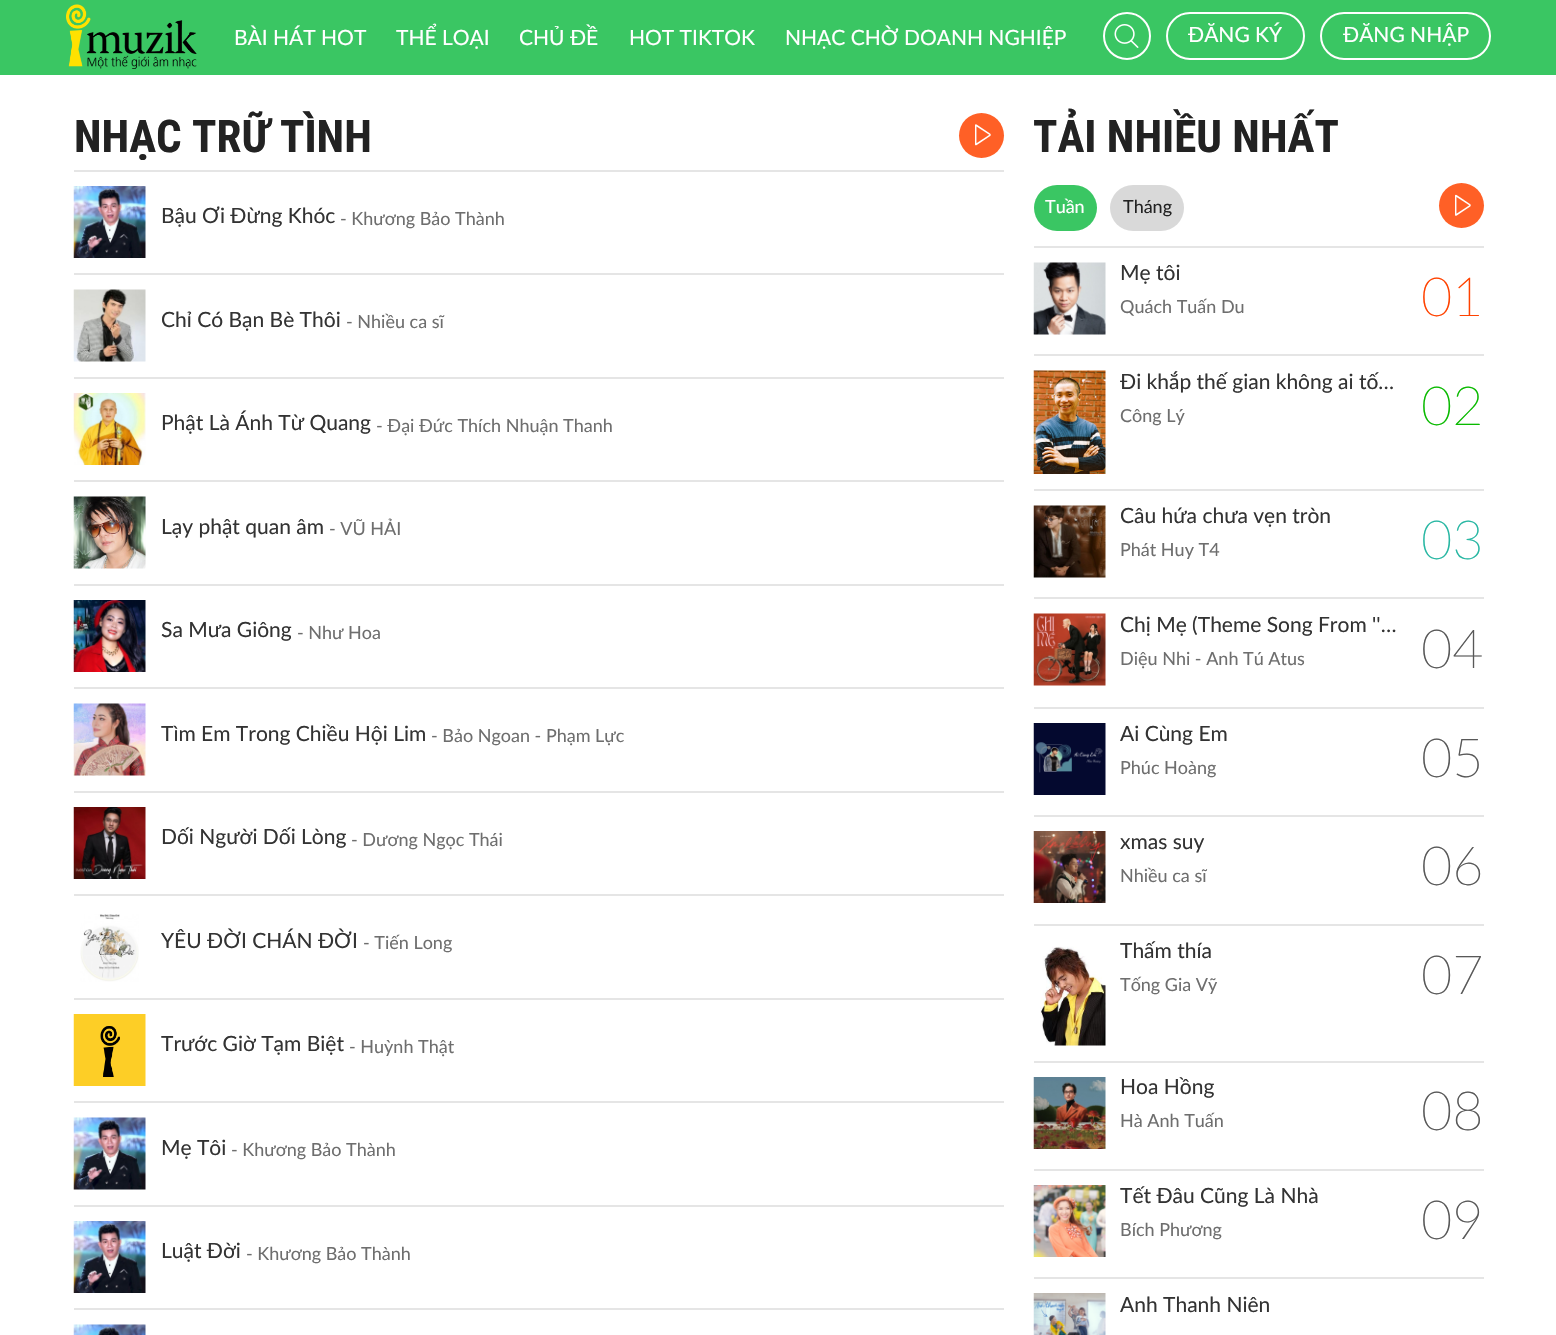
#include "include/core/SkBlurTypes.h"
#include "include/core/SkCanvas.h"
#include "include/core/SkData.h"
#include "include/core/SkFont.h"
#include "include/core/SkFontMgr.h"
#include "include/core/SkImage.h"
#include "include/core/SkMaskFilter.h"
#include "include/core/SkPaint.h"
#include "include/core/SkPathBuilder.h"
#include "include/core/SkTextBlob.h"
#include "include/effects/SkDashPathEffect.h"
#include "include/effects/SkGradientShader.h"
#include "include/utils/SkParsePath.h"

extern sk_sp<SkFontMgr> fontMgr;

void draw(SkCanvas* canvas) {
  SkPaint p;
  p.setAntiAlias(true);
  canvas->clear(SK_ColorWHITE);
  p.setColor(SkColorSetRGB(58, 198, 99));
  canvas->drawRect(SkRect::MakeLTRB(0, 0, 1556, 75), p);
  canvas->drawImageRect(SkImages::DeferredFromEncodedData(SkData::MakeFromFileName("images/1.png")), SkRect::MakeLTRB(66, 4, 197, 69), SkSamplingOptions());
  p.setStyle(SkPaint::kStroke_Style);
  p.setStrokeWidth(2);
  p.setColor(SK_ColorWHITE);
  canvas->drawCircle(1127, 36, 23, p);
  canvas->drawImageRect(SkImages::DeferredFromEncodedData(SkData::MakeFromFileName("images/2.png")), SkRect::MakeLTRB(1114, 24, 1139, 48), SkSamplingOptions());
  canvas->drawRoundRect(SkRect::MakeLTRB(1167, 13, 1304, 59), 23, 23, p);
  canvas->drawRoundRect(SkRect::MakeLTRB(1321, 13, 1490, 59), 23, 23, p);
  p.setStyle(SkPaint::kFill_Style);
  p.setColor(SkColorSetRGB(255, 96, 38));
  canvas->drawCircle(981.5f, 135.5f, 22.5f, p);
  canvas->drawImageRect(SkImages::DeferredFromEncodedData(SkData::MakeFromFileName("images/3.png")), SkRect::MakeLTRB(975, 124, 991, 146), SkSamplingOptions());
  p.setColor(SkColorSetRGB(229, 229, 229));
  canvas->drawRect(SkRect::MakeLTRB(74, 170, 1004, 172), p);
  canvas->drawImageRect(SkImages::DeferredFromEncodedData(SkData::MakeFromFileName("images/4.png")), SkRect::MakeLTRB(73, 186, 146, 258), SkSamplingOptions());
  canvas->drawRect(SkRect::MakeLTRB(74, 273, 1004, 275), p);
  canvas->drawImageRect(SkImages::DeferredFromEncodedData(SkData::MakeFromFileName("images/5.png")), SkRect::MakeLTRB(73, 289, 146, 362), SkSamplingOptions());
  canvas->drawRect(SkRect::MakeLTRB(74, 377, 1004, 379), p);
  canvas->drawImageRect(SkImages::DeferredFromEncodedData(SkData::MakeFromFileName("images/6.png")), SkRect::MakeLTRB(73, 393, 146, 465), SkSamplingOptions());
  canvas->drawRect(SkRect::MakeLTRB(74, 480, 1004, 482), p);
  canvas->drawImageRect(SkImages::DeferredFromEncodedData(SkData::MakeFromFileName("images/7.png")), SkRect::MakeLTRB(73, 496, 146, 569), SkSamplingOptions());
  canvas->drawRect(SkRect::MakeLTRB(74, 584, 1004, 586), p);
  canvas->drawImageRect(SkImages::DeferredFromEncodedData(SkData::MakeFromFileName("images/8.png")), SkRect::MakeLTRB(73, 600, 146, 672), SkSamplingOptions());
  canvas->drawRect(SkRect::MakeLTRB(74, 687, 1004, 689), p);
  canvas->drawImageRect(SkImages::DeferredFromEncodedData(SkData::MakeFromFileName("images/9.png")), SkRect::MakeLTRB(73, 703, 146, 776), SkSamplingOptions());
  canvas->drawRect(SkRect::MakeLTRB(74, 791, 1004, 793), p);
  canvas->drawImageRect(SkImages::DeferredFromEncodedData(SkData::MakeFromFileName("images/10.png")), SkRect::MakeLTRB(73, 807, 146, 879), SkSamplingOptions());
  canvas->drawRect(SkRect::MakeLTRB(74, 894, 1004, 896), p);
  canvas->drawImageRect(SkImages::DeferredFromEncodedData(SkData::MakeFromFileName("images/11.png")), SkRect::MakeLTRB(80, 914, 139, 982), SkSamplingOptions());
  canvas->drawRect(SkRect::MakeLTRB(74, 998, 1004, 1000), p);
  canvas->drawImageRect(SkImages::DeferredFromEncodedData(SkData::MakeFromFileName("images/12.png")), SkRect::MakeLTRB(73, 1014, 146, 1086), SkSamplingOptions());
  canvas->drawRect(SkRect::MakeLTRB(74, 1101, 1004, 1103), p);
  canvas->drawImageRect(SkImages::DeferredFromEncodedData(SkData::MakeFromFileName("images/13.png")), SkRect::MakeLTRB(73, 1117, 146, 1190), SkSamplingOptions());
  canvas->drawRect(SkRect::MakeLTRB(74, 1205, 1004, 1207), p);
  canvas->drawImageRect(SkImages::DeferredFromEncodedData(SkData::MakeFromFileName("images/4.png")), SkRect::MakeLTRB(73, 1221, 146, 1293), SkSamplingOptions());
  canvas->drawRect(SkRect::MakeLTRB(74, 1308, 1004, 1310), p);
  canvas->drawImageRect(SkImages::DeferredFromEncodedData(SkData::MakeFromFileName("images/14.png")), SkRect::MakeLTRB(73, 1324, 146, 1335), SkSamplingOptions());
  p.setColor(SkColorSetRGB(58, 198, 99));
  canvas->drawRoundRect(SkRect::MakeLTRB(1034, 185, 1097, 231), 23, 23, p);
  p.setColor(SkColorSetRGB(217, 217, 217));
  canvas->drawRoundRect(SkRect::MakeLTRB(1110, 185, 1184, 231), 23, 23, p);
  p.setColor(SkColorSetRGB(255, 96, 38));
  canvas->drawCircle(1461.5f, 205.5f, 22.5f, p);
  canvas->drawImageRect(SkImages::DeferredFromEncodedData(SkData::MakeFromFileName("images/15.png")), SkRect::MakeLTRB(1455, 194, 1471, 216), SkSamplingOptions());
  p.setColor(SkColorSetRGB(229, 229, 229));
  canvas->drawRect(SkRect::MakeLTRB(1034, 246, 1484, 248), p);
  canvas->drawImageRect(SkImages::DeferredFromEncodedData(SkData::MakeFromFileName("images/16.png")), SkRect::MakeLTRB(1033, 262, 1106, 335), SkSamplingOptions());
  canvas->drawRect(SkRect::MakeLTRB(1034, 354, 1484, 356), p);
  canvas->drawImageRect(SkImages::DeferredFromEncodedData(SkData::MakeFromFileName("images/17.png")), SkRect::MakeLTRB(1033, 370, 1106, 474), SkSamplingOptions());
  canvas->drawRect(SkRect::MakeLTRB(1034, 489, 1484, 491), p);
  canvas->drawImageRect(SkImages::DeferredFromEncodedData(SkData::MakeFromFileName("images/18.png")), SkRect::MakeLTRB(1033, 505, 1106, 578), SkSamplingOptions());
  canvas->drawRect(SkRect::MakeLTRB(1034, 597, 1484, 599), p);
  canvas->drawImageRect(SkImages::DeferredFromEncodedData(SkData::MakeFromFileName("images/19.png")), SkRect::MakeLTRB(1033, 613, 1106, 686), SkSamplingOptions());
  canvas->drawRect(SkRect::MakeLTRB(1034, 707, 1484, 709), p);
  canvas->drawImageRect(SkImages::DeferredFromEncodedData(SkData::MakeFromFileName("images/20.png")), SkRect::MakeLTRB(1033, 723, 1106, 795), SkSamplingOptions());
  canvas->drawRect(SkRect::MakeLTRB(1034, 815, 1484, 817), p);
  canvas->drawImageRect(SkImages::DeferredFromEncodedData(SkData::MakeFromFileName("images/21.png")), SkRect::MakeLTRB(1033, 831, 1106, 903), SkSamplingOptions());
  canvas->drawRect(SkRect::MakeLTRB(1034, 924, 1484, 926), p);
  canvas->drawImageRect(SkImages::DeferredFromEncodedData(SkData::MakeFromFileName("images/22.png")), SkRect::MakeLTRB(1040, 946, 1106, 1046), SkSamplingOptions());
  canvas->drawRect(SkRect::MakeLTRB(1034, 1061, 1484, 1063), p);
  canvas->drawImageRect(SkImages::DeferredFromEncodedData(SkData::MakeFromFileName("images/23.png")), SkRect::MakeLTRB(1033, 1077, 1106, 1149), SkSamplingOptions());
  canvas->drawRect(SkRect::MakeLTRB(1034, 1169, 1484, 1171), p);
  canvas->drawImageRect(SkImages::DeferredFromEncodedData(SkData::MakeFromFileName("images/24.png")), SkRect::MakeLTRB(1033, 1185, 1106, 1257), SkSamplingOptions());
  canvas->drawRect(SkRect::MakeLTRB(1034, 1277, 1484, 1279), p);
  canvas->drawImageRect(SkImages::DeferredFromEncodedData(SkData::MakeFromFileName("images/25.png")), SkRect::MakeLTRB(1033, 1293, 1106, 1335), SkSamplingOptions());
  SkFont font1(fontMgr->matchFamilyStyle("Lato", SkFontStyle::Normal()), 21);
  font1.setSubpixel(true);
  p.setColor(SK_ColorWHITE);
  canvas->drawString("BÀI HÁT HOT", 234, 45, font1, p);
  canvas->drawString("THỂ LOẠI", 396, 45, font1, p);
  canvas->drawString("CHỦ ĐỀ", 519, 45, font1, p);
  canvas->drawString("HOT TIKTOK", 629, 45, font1, p);
  canvas->drawString("NHẠC CHỜ DOANH NGHIỆP", 785, 45, font1, p);
  canvas->drawString("ĐĂNG KÝ", 1188, 42, font1, p);
  canvas->drawString("ĐĂNG NHẬP", 1343, 42, font1, p);
  SkFont font2(fontMgr->matchFamilyStyle("Roboto Condensed", SkFontStyle::Bold()), 45);
  font2.setSubpixel(true);
  p.setColor(SkColorSetRGB(34, 34, 34));
  canvas->drawString("NHẠC TRỮ TÌNH", 74, 152, font2, p);
  p.setColor(SkColorSetRGB(51, 51, 51));
  canvas->drawString("Bậu Ơi Đừng Khóc", 161, 223, font1, p);
  SkFont font3(fontMgr->matchFamilyStyle("Lato", SkFontStyle::Normal()), 18);
  font3.setSubpixel(true);
  p.setColor(SkColorSetRGB(110, 110, 110));
  canvas->drawString("- Khương Bảo Thành", 340, 225, font3, p);
  p.setColor(SkColorSetRGB(51, 51, 51));
  canvas->drawString("Chỉ Có Bạn Bè Thôi", 161, 327, font1, p);
  p.setColor(SkColorSetRGB(110, 110, 110));
  canvas->drawString("- Nhiều ca sĩ", 346, 328, font3, p);
  p.setColor(SkColorSetRGB(51, 51, 51));
  canvas->drawString("Phật Là Ánh Từ Quang", 161, 430, font1, p);
  p.setColor(SkColorSetRGB(110, 110, 110));
  canvas->drawString("- Đại Đức Thích Nhuận Thanh", 376, 432, font3, p);
  p.setColor(SkColorSetRGB(51, 51, 51));
  canvas->drawString("Lạy phật quan âm", 161, 534, font1, p);
  p.setColor(SkColorSetRGB(110, 110, 110));
  canvas->drawString("- VŨ HẢI", 329, 535, font3, p);
  p.setColor(SkColorSetRGB(51, 51, 51));
  canvas->drawString("Sa Mưa Giông", 161, 637, font1, p);
  p.setColor(SkColorSetRGB(110, 110, 110));
  canvas->drawString("- Như Hoa", 297, 639, font3, p);
  p.setColor(SkColorSetRGB(51, 51, 51));
  canvas->drawString("Tìm Em Trong Chiều Hội Lim", 161, 741, font1, p);
  p.setColor(SkColorSetRGB(110, 110, 110));
  canvas->drawString("- Bảo Ngoan - Phạm Lực", 431, 742, font3, p);
  p.setColor(SkColorSetRGB(51, 51, 51));
  canvas->drawString("Dối Người Dối Lòng", 161, 844, font1, p);
  p.setColor(SkColorSetRGB(110, 110, 110));
  canvas->drawString("- Dương Ngọc Thái", 351, 846, font3, p);
  p.setColor(SkColorSetRGB(51, 51, 51));
  canvas->drawString("YÊU ĐỜI CHÁN ĐỜI", 161, 948, font1, p);
  p.setColor(SkColorSetRGB(110, 110, 110));
  canvas->drawString("- Tiến Long", 363, 949, font3, p);
  p.setColor(SkColorSetRGB(51, 51, 51));
  canvas->drawString("Trước Giờ Tạm Biệt", 161, 1051, font1, p);
  p.setColor(SkColorSetRGB(110, 110, 110));
  canvas->drawString("- Huỳnh Thật", 349, 1053, font3, p);
  p.setColor(SkColorSetRGB(51, 51, 51));
  canvas->drawString("Mẹ Tôi", 161, 1155, font1, p);
  p.setColor(SkColorSetRGB(110, 110, 110));
  canvas->drawString("- Khương Bảo Thành", 231, 1156, font3, p);
  p.setColor(SkColorSetRGB(51, 51, 51));
  canvas->drawString("Luật Đời", 161, 1258, font1, p);
  p.setColor(SkColorSetRGB(110, 110, 110));
  canvas->drawString("- Khương Bảo Thành", 246, 1260, font3, p);
  p.setColor(SkColorSetRGB(34, 34, 34));
  canvas->drawString("TẢI NHIỀU NHẤT", 1033, 152, font2, p);
  p.setColor(SK_ColorWHITE);
  canvas->drawString("Tuần", 1045, 213, font3, p);
  p.setColor(SkColorSetRGB(34, 34, 34));
  canvas->drawString("Tháng", 1123, 213, font3, p);
  p.setColor(SkColorSetRGB(51, 51, 51));
  canvas->drawString("Mẹ tôi", 1120, 280, font1, p);
  p.setColor(SkColorSetRGB(110, 110, 110));
  canvas->drawString("Quách Tuấn Du", 1120, 313, font3, p);
  SkFont font4(fontMgr->matchFamilyStyle("Lato", SkFontStyle(100, SkFontStyle::kNormal_Width, SkFontStyle::kUpright_Slant)), 54);
  font4.setSubpixel(true);
  p.setColor(SkColorSetRGB(255, 66, 0));
  canvas->drawString("01", 1421, 316, font4, p);
  p.setColor(SkColorSetRGB(51, 51, 51));
  canvas->drawString("Đi khắp thế gian không ai tố…", 1120, 389, font1, p);
  p.setColor(SkColorSetRGB(110, 110, 110));
  canvas->drawString("Công Lý", 1120, 422, font3, p);
  p.setColor(SkColorSetRGB(9, 186, 0));
  canvas->drawString("02", 1421, 425, font4, p);
  p.setColor(SkColorSetRGB(51, 51, 51));
  canvas->drawString("Câu hứa chưa vẹn tròn", 1120, 523, font1, p);
  p.setColor(SkColorSetRGB(110, 110, 110));
  canvas->drawString("Phát Huy T4", 1120, 556, font3, p);
  p.setColor(SkColorSetRGB(40, 183, 163));
  canvas->drawString("03", 1421, 559, font4, p);
  p.setColor(SkColorSetRGB(51, 51, 51));
  canvas->drawString("Chị Mẹ (Theme Song From ''…", 1120, 632, font1, p);
  p.setColor(SkColorSetRGB(110, 110, 110));
  canvas->drawString("Diệu Nhi - Anh Tú Atus", 1120, 665, font3, p);
  p.setColor(SkColorSetRGB(88, 88, 88));
  canvas->drawString("04", 1421, 668, font4, p);
  p.setColor(SkColorSetRGB(51, 51, 51));
  canvas->drawString("Ai Cùng Em", 1120, 741, font1, p);
  p.setColor(SkColorSetRGB(110, 110, 110));
  canvas->drawString("Phúc Hoàng", 1120, 774, font3, p);
  p.setColor(SkColorSetRGB(88, 88, 88));
  canvas->drawString("05", 1421, 777, font4, p);
  p.setColor(SkColorSetRGB(51, 51, 51));
  canvas->drawString("xmas suy", 1120, 849, font1, p);
  p.setColor(SkColorSetRGB(110, 110, 110));
  canvas->drawString("Nhiều ca sĩ", 1120, 882, font3, p);
  p.setColor(SkColorSetRGB(88, 88, 88));
  canvas->drawString("06", 1421, 885, font4, p);
  p.setColor(SkColorSetRGB(51, 51, 51));
  canvas->drawString("Thấm thía", 1120, 958, font1, p);
  p.setColor(SkColorSetRGB(110, 110, 110));
  canvas->drawString("Tống Gia Vỹ", 1120, 991, font3, p);
  p.setColor(SkColorSetRGB(88, 88, 88));
  canvas->drawString("07", 1421, 994, font4, p);
  p.setColor(SkColorSetRGB(51, 51, 51));
  canvas->drawString("Hoa Hồng", 1120, 1094, font1, p);
  p.setColor(SkColorSetRGB(110, 110, 110));
  canvas->drawString("Hà Anh Tuấn", 1120, 1127, font3, p);
  p.setColor(SkColorSetRGB(88, 88, 88));
  canvas->drawString("08", 1421, 1130, font4, p);
  p.setColor(SkColorSetRGB(51, 51, 51));
  canvas->drawString("Tết Đâu Cũng Là Nhà", 1120, 1203, font1, p);
  p.setColor(SkColorSetRGB(110, 110, 110));
  canvas->drawString("Bích Phương", 1120, 1236, font3, p);
  p.setColor(SkColorSetRGB(88, 88, 88));
  canvas->drawString("09", 1421, 1239, font4, p);
  p.setColor(SkColorSetRGB(51, 51, 51));
  canvas->drawString("Anh Thanh Niên", 1120, 1312, font1, p);
}
